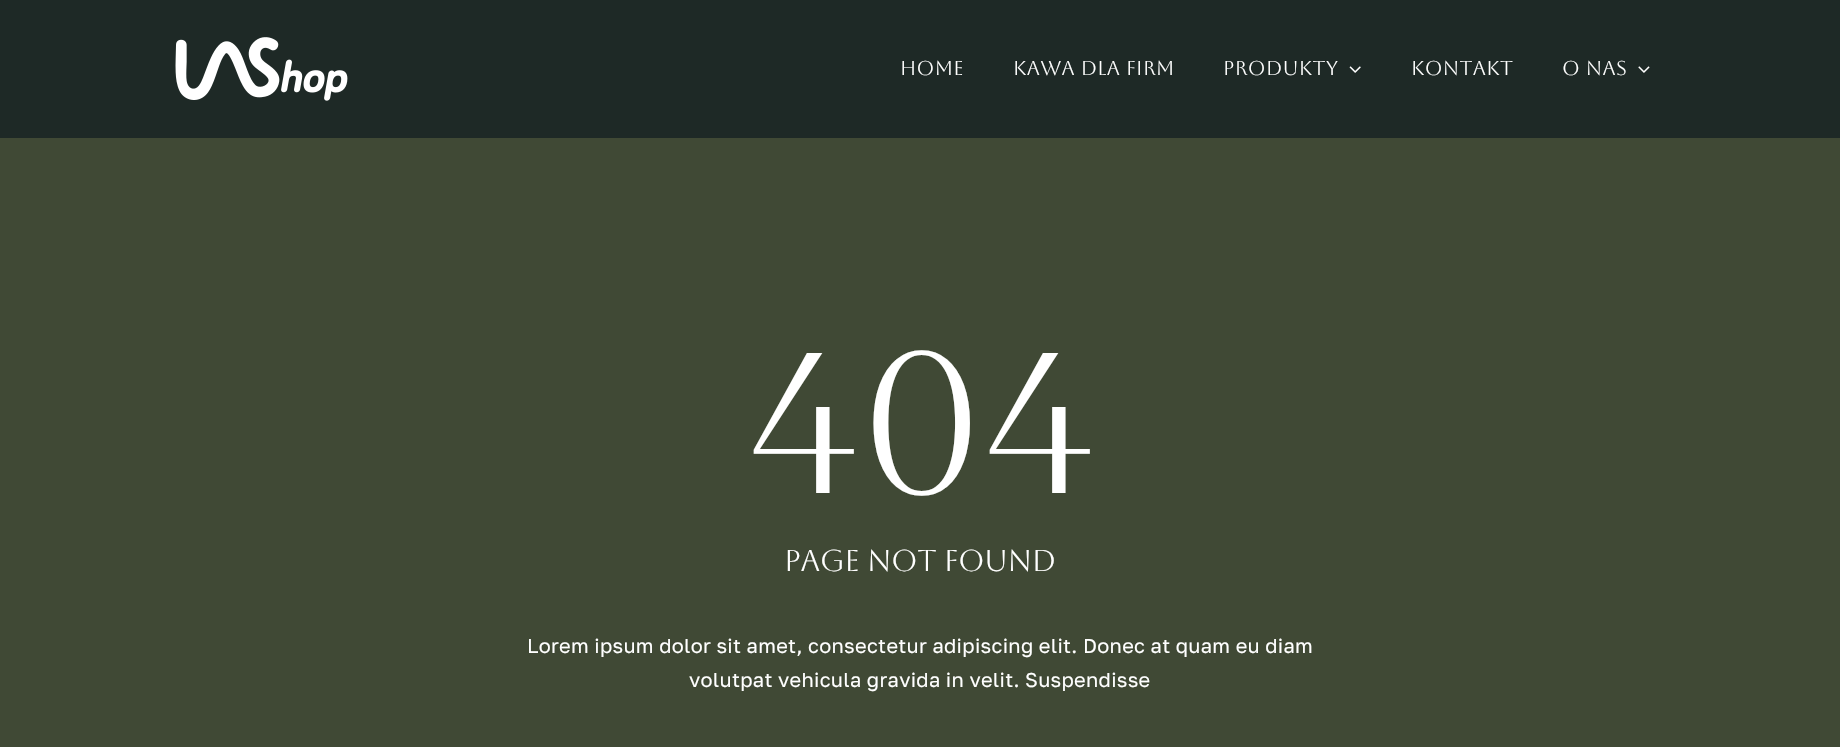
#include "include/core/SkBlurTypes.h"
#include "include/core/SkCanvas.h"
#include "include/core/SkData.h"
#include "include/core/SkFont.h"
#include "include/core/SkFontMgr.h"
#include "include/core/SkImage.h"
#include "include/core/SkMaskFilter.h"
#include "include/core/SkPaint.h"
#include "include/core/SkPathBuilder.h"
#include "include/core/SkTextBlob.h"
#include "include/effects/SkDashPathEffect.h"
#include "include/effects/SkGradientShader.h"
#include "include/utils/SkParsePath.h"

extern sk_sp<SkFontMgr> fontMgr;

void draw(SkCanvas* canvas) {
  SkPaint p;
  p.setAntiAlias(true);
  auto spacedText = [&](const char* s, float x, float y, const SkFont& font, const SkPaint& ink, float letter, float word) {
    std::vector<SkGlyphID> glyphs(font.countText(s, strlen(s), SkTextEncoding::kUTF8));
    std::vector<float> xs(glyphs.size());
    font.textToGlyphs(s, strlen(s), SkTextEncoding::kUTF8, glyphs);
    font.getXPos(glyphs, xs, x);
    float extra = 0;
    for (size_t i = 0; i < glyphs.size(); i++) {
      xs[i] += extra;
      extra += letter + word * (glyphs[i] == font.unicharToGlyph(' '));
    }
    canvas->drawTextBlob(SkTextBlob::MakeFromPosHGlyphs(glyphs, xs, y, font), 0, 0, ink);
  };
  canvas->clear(SkColorSetRGB(64, 73, 53));
  p.setColor(SkColorSetRGB(30, 41, 38));
  canvas->drawRect(SkRect::MakeLTRB(0, 0, 1840, 138), p);
  canvas->drawImageRect(SkImages::DeferredFromEncodedData(SkData::MakeFromFileName("images/1.png")), SkRect::MakeLTRB(175, 37, 348, 101), SkSamplingOptions());
  canvas->drawImageRect(SkImages::DeferredFromEncodedData(SkData::MakeFromFileName("images/2.png")), SkRect::MakeLTRB(1349, 66, 1361, 73), SkSamplingOptions());
  canvas->drawImageRect(SkImages::DeferredFromEncodedData(SkData::MakeFromFileName("images/3.png")), SkRect::MakeLTRB(1638, 66, 1650, 73), SkSamplingOptions());
  SkFont font1(fontMgr->matchFamilyStyle("Aboreto", SkFontStyle::Normal()), 20);
  font1.setSubpixel(true);
  p.setColor(SK_ColorWHITE);
  spacedText("Home", 900, 75, font1, p, 0.3f, 0);
  spacedText("Kawa dla firm", 1013, 75, font1, p, 0.3f, 0);
  spacedText("Produkty", 1223, 75, font1, p, 0.3f, 0);
  spacedText("Kontakt", 1411, 75, font1, p, 0.3f, 0);
  spacedText("O nas", 1562, 75, font1, p, 0.3f, 0);
  SkFont font2(fontMgr->matchFamilyStyle("Aboreto", SkFontStyle::Normal()), 200);
  font2.setSubpixel(true);
  spacedText("404", 747, 493, font2, p, -3, 0);
  SkFont font3(fontMgr->matchFamilyStyle("Aboreto", SkFontStyle::Normal()), 30);
  font3.setSubpixel(true);
  spacedText("Page Not Found", 784, 571, font3, p, -0.5f, 0);
  SkFont font4(fontMgr->matchFamilyStyle("Golos Text", SkFontStyle::Normal()), 20);
  font4.setSubpixel(true);
  spacedText("Lorem ipsum dolor sit amet, consectetur adipiscing elit. Donec at quam eu diam", 527, 653, font4, p, 0.3f, 0);
  spacedText("volutpat vehicula gravida in velit. Suspendisse", 689, 687, font4, p, 0.3f, 0);
}
